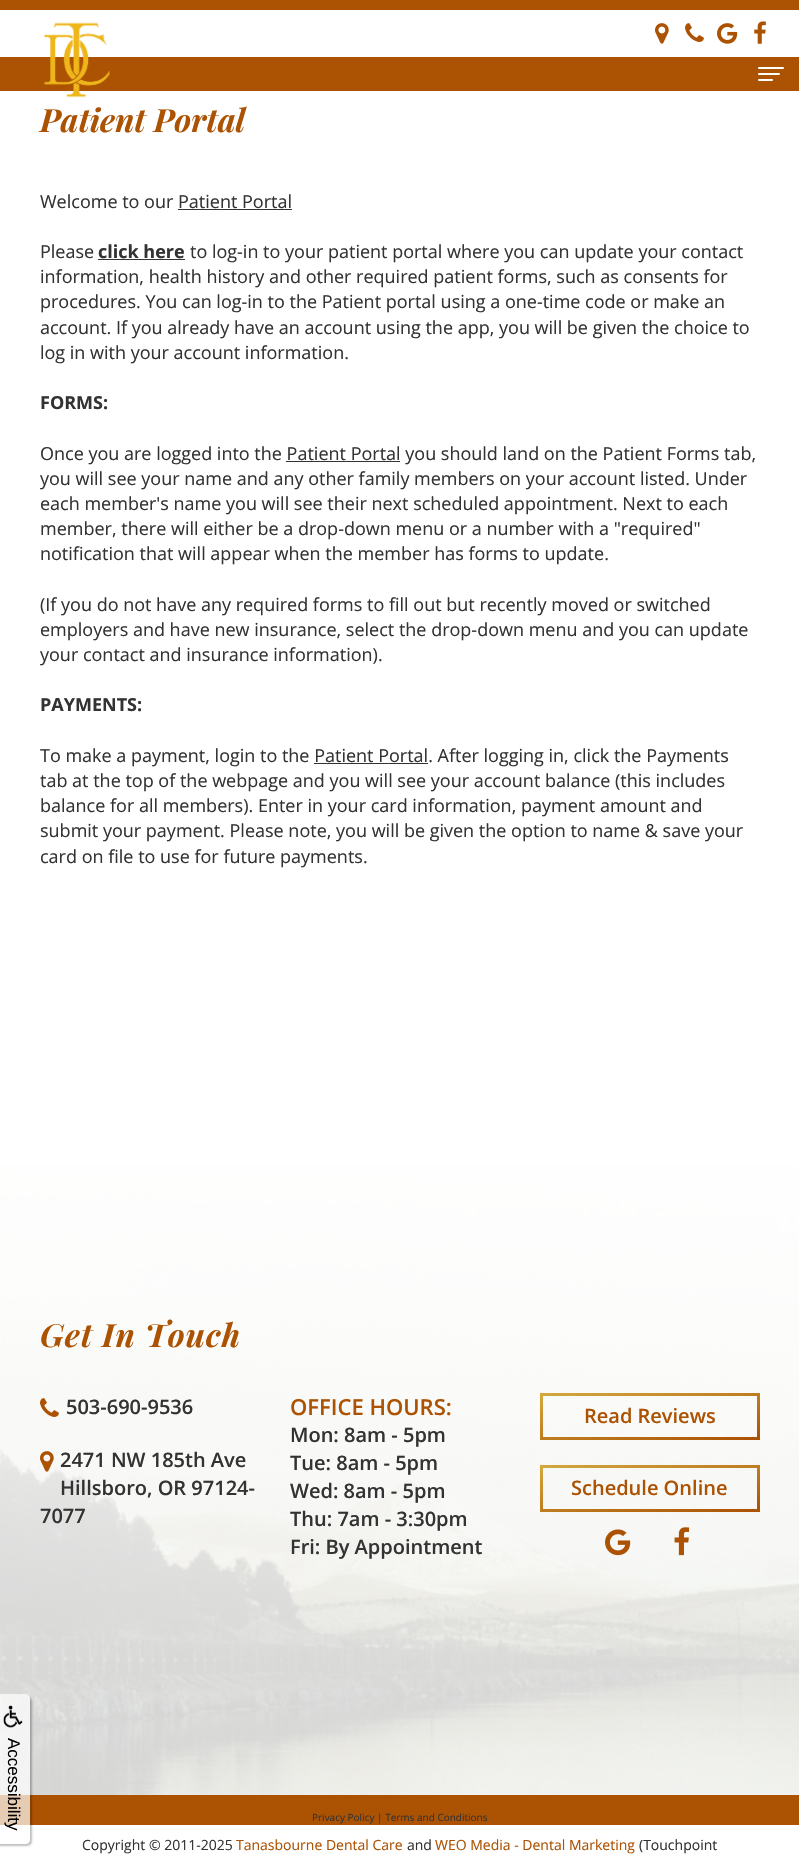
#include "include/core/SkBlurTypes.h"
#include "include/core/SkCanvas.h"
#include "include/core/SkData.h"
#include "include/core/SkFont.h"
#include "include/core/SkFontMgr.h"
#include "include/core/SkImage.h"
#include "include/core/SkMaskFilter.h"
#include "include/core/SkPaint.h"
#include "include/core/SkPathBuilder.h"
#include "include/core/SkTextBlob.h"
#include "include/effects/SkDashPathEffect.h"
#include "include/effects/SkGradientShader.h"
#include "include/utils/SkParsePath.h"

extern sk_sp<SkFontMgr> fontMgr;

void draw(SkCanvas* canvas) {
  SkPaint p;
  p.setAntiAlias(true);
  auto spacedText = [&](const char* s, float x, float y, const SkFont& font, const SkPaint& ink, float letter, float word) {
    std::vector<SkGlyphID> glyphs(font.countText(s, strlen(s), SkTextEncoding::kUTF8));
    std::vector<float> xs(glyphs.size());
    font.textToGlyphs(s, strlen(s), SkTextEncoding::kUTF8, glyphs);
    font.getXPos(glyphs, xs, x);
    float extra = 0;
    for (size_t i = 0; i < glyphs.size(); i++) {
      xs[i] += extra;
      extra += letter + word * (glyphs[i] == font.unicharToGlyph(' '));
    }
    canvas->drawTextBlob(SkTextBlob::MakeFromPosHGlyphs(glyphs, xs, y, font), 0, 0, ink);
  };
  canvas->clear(SK_ColorWHITE);
  p.setColor(SkColorSetRGB(172, 82, 3));
  canvas->drawRect(SkRect::MakeLTRB(0, 0, 799, 10), p);
  canvas->drawRect(SkRect::MakeLTRB(0, 57, 799, 91), p);
  canvas->drawImageRect(SkImages::DeferredFromEncodedData(SkData::MakeFromFileName("images/1.png")), SkRect::MakeLTRB(44, 22, 110, 98), SkSamplingOptions());
  canvas->drawImageRect(SkImages::DeferredFromEncodedData(SkData::MakeFromFileName("images/2.png")), SkRect::MakeLTRB(655, 23, 669, 44), SkSamplingOptions());
  canvas->drawImageRect(SkImages::DeferredFromEncodedData(SkData::MakeFromFileName("images/3.png")), SkRect::MakeLTRB(685, 23, 704, 42), SkSamplingOptions());
  canvas->drawImageRect(SkImages::DeferredFromEncodedData(SkData::MakeFromFileName("images/4.png")), SkRect::MakeLTRB(717, 23, 738, 44), SkSamplingOptions());
  canvas->drawImageRect(SkImages::DeferredFromEncodedData(SkData::MakeFromFileName("images/5.png")), SkRect::MakeLTRB(754, 21, 766, 44), SkSamplingOptions());
  p.setColor(SK_ColorWHITE);
  canvas->drawRoundRect(SkRect::MakeLTRB(758, 67, 784, 69), 1, 1, p);
  canvas->drawRoundRect(SkRect::MakeLTRB(758, 73, 780, 75), 1, 1, p);
  canvas->drawRoundRect(SkRect::MakeLTRB(758, 79, 773, 81), 1, 1, p);
  p.setColor(SkColorSetRGB(51, 51, 51));
  canvas->drawRect(SkRect::MakeLTRB(178, 209, 292, 210), p);
  canvas->drawRect(SkRect::MakeLTRB(98, 259, 185, 260), p);
  canvas->drawRect(SkRect::MakeLTRB(286, 461, 400, 462), p);
  canvas->drawRect(SkRect::MakeLTRB(314, 763, 428, 764), p);
  canvas->drawImageRect(SkImages::DeferredFromEncodedData(SkData::MakeFromFileName("images/6.png")), SkRect::MakeLTRB(0, 1165, 799, 1795), SkSamplingOptions());
  canvas->drawImageRect(SkImages::DeferredFromEncodedData(SkData::MakeFromFileName("images/7.png")), SkRect::MakeLTRB(40, 1398, 59, 1417), SkSamplingOptions());
  canvas->drawImageRect(SkImages::DeferredFromEncodedData(SkData::MakeFromFileName("images/8.png")), SkRect::MakeLTRB(40, 1451, 54, 1472), SkSamplingOptions());
  canvas->drawImageRect(SkImages::DeferredFromEncodedData(SkData::MakeFromFileName("images/9.png")), SkRect::MakeLTRB(540, 1393, 760, 1440), SkSamplingOptions());
  canvas->drawImageRect(SkImages::DeferredFromEncodedData(SkData::MakeFromFileName("images/10.png")), SkRect::MakeLTRB(540, 1465, 760, 1512), SkSamplingOptions());
  canvas->drawImageRect(SkImages::DeferredFromEncodedData(SkData::MakeFromFileName("images/11.png")), SkRect::MakeLTRB(605, 1529, 631, 1556), SkSamplingOptions());
  canvas->drawImageRect(SkImages::DeferredFromEncodedData(SkData::MakeFromFileName("images/12.png")), SkRect::MakeLTRB(674, 1527, 690, 1556), SkSamplingOptions());
  p.setColor(SkColorSetRGB(172, 82, 3));
  canvas->drawRect(SkRect::MakeLTRB(0, 1795, 799, 1825), p);
  canvas->save();
  canvas->clipPath(SkPathBuilder(SkPathFillType::kEvenOdd).moveTo(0, 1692).lineTo(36, 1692).lineTo(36, 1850).lineTo(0, 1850).close().moveTo(-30, 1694).lineTo(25, 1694).cubicTo(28, 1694, 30, 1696, 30, 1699).lineTo(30, 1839).cubicTo(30, 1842, 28, 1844, 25, 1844).lineTo(-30, 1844).close().detach(), true);
  p.setColor(SkColorSetARGB(64, 0, 0, 0));
  p.setMaskFilter(SkMaskFilter::MakeBlur(kNormal_SkBlurStyle, 1));
  canvas->drawRoundRect(SkRect::MakeLTRB(-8, 1696, 32, 1846), 5, 5, p);
  p.setMaskFilter(nullptr);
  canvas->restore();
  p.setColor(SkColorSetARGB(179, 255, 255, 255));
  canvas->drawPath(SkPathBuilder().moveTo(-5, 1694).lineTo(25, 1694).cubicTo(28, 1694, 30, 1696, 30, 1699).lineTo(30, 1839).cubicTo(30, 1842, 28, 1844, 25, 1844).lineTo(-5, 1844).close().detach(), p);
  canvas->drawImageRect(SkImages::DeferredFromEncodedData(SkData::MakeFromFileName("images/13.png")), SkRect::MakeLTRB(3, 1705, 23, 1728), SkSamplingOptions());
  SkFont font1(fontMgr->matchFamilyStyle("Playfair Display", SkFontStyle::BoldItalic()), 32);
  font1.setSubpixel(true);
  p.setColor(SkColorSetRGB(172, 82, 3));
  canvas->drawString("Patient Portal", 40, 132, font1, p);
  SkFont font2(fontMgr->matchFamilyStyle("Open Sans", SkFontStyle::Normal()), 18);
  font2.setSubpixel(true);
  p.setColor(SkColorSetRGB(51, 51, 51));
  canvas->drawString("Welcome to our Patient Portal", 40, 208, font2, p);
  canvas->drawString("Please", 40, 258, font2, p);
  SkFont font3(fontMgr->matchFamilyStyle("Open Sans", SkFontStyle::Bold()), 18);
  font3.setSubpixel(true);
  canvas->drawString("click here", 98, 258, font3, p);
  canvas->drawString("to log-in to your patient portal where you can update your contact", 190, 258, font2, p);
  canvas->drawString("information, health history and other required patient forms, such as consents for", 40, 283, font2, p);
  canvas->drawString("procedures. You can log-in to the Patient portal using a one-time code or make an", 40, 308, font2, p);
  canvas->drawString("account. If you already have an account using the app, you will be given the choice to", 40, 334, font2, p);
  canvas->drawString("log in with your account information.", 40, 359, font2, p);
  canvas->drawString("FORMS:", 40, 409, font3, p);
  canvas->drawString("Once you are logged into the Patient Portal you should land on the Patient Forms tab,", 40, 460, font2, p);
  canvas->drawString("you will see your name and any other family members on your account listed. Under", 40, 485, font2, p);
  canvas->drawString("each member's name you will see their next scheduled appointment. Next to each", 40, 510, font2, p);
  canvas->drawString("member, there will either be a drop-down menu or a number with a \"required\"", 40, 535, font2, p);
  canvas->drawString("notification that will appear when the member has forms to update.", 40, 560, font2, p);
  canvas->drawString("(If you do not have any required forms to fill out but recently moved or switched", 40, 611, font2, p);
  canvas->drawString("employers and have new insurance, select the drop-down menu and you can update", 40, 636, font2, p);
  canvas->drawString("your contact and insurance information).", 40, 661, font2, p);
  canvas->drawString("PAYMENTS:", 40, 711, font3, p);
  canvas->drawString("To make a payment, login to the Patient Portal. After logging in, click the Payments", 40, 762, font2, p);
  canvas->drawString("tab at the top of the webpage and you will see your account balance (this includes", 40, 787, font2, p);
  canvas->drawString("balance for all members). Enter in your card information, payment amount and", 40, 812, font2, p);
  canvas->drawString("submit your payment. Please note, you will be given the option to name & save your", 40, 837, font2, p);
  canvas->drawString("card on file to use for future payments.", 40, 863, font2, p);
  p.setColor(SkColorSetRGB(172, 82, 3));
  spacedText("Get In Touch", 40, 1347, font1, p, 1, 0);
  SkFont font4(fontMgr->matchFamilyStyle("Open Sans", SkFontStyle(600, SkFontStyle::kNormal_Width, SkFontStyle::kUpright_Slant)), 20);
  font4.setSubpixel(true);
  p.setColor(SkColorSetRGB(51, 51, 51));
  canvas->drawString("503-690-9536", 66, 1414, font4, p);
  canvas->drawString("2471 NW 185th Ave", 60, 1467, font4, p);
  canvas->drawString("Hillsboro, OR 97124-", 60, 1495, font4, p);
  canvas->drawString("7077", 40, 1523, font4, p);
  SkFont font5(fontMgr->matchFamilyStyle("Open Sans", SkFontStyle(600, SkFontStyle::kNormal_Width, SkFontStyle::kUpright_Slant)), 22);
  font5.setSubpixel(true);
  p.setColor(SkColorSetRGB(172, 82, 3));
  canvas->drawString("OFFICE HOURS:", 290, 1415, font5, p);
  p.setColor(SkColorSetRGB(51, 51, 51));
  canvas->drawString("Mon: 8am - 5pm", 290, 1442, font4, p);
  canvas->drawString("Tue: 8am - 5pm", 290, 1470, font4, p);
  canvas->drawString("Wed: 8am - 5pm", 290, 1498, font4, p);
  canvas->drawString("Thu: 7am - 3:30pm", 290, 1526, font4, p);
  canvas->drawString("Fri: By Appointment", 290, 1554, font4, p);
  p.setColor(SkColorSetRGB(172, 82, 3));
  canvas->drawString("Read Reviews", 584, 1423, font4, p);
  canvas->drawString("Schedule Online", 571, 1495, font4, p);
  SkFont font6(fontMgr->matchFamilyStyle("Liberation Sans", SkFontStyle::Normal()), 17);
  font6.setSubpixel(true);
  p.setColor(SK_ColorBLACK);
  canvas->save();
  canvas->rotate(90, 8, 1738);
  canvas->drawString("Accessibility", 8, 1738, font6, p);
  canvas->restore();
  SkFont font7(fontMgr->matchFamilyStyle("Open Sans", SkFontStyle::Normal()), 10);
  font7.setSubpixel(true);
  p.setColor(SkColorSetRGB(51, 51, 51));
  canvas->drawString("Privacy Policy | Terms and Conditions", 312, 1821, font7, p);
  SkFont font8(fontMgr->matchFamilyStyle("Open Sans", SkFontStyle::Normal()), 14);
  font8.setSubpixel(true);
  canvas->drawString("Copyright © 2011-2025", 82, 1850, font8, p);
  p.setColor(SkColorSetRGB(172, 82, 3));
  canvas->drawString("Tanasbourne Dental Care", 236, 1850, font8, p);
  p.setColor(SkColorSetRGB(51, 51, 51));
  canvas->drawString("and", 407, 1850, font8, p);
  p.setColor(SkColorSetRGB(172, 82, 3));
  canvas->drawString("WEO Media - Dental Marketing", 435, 1850, font8, p);
  p.setColor(SkColorSetRGB(51, 51, 51));
  canvas->drawString("(Touchpoint", 639, 1850, font8, p);
}
